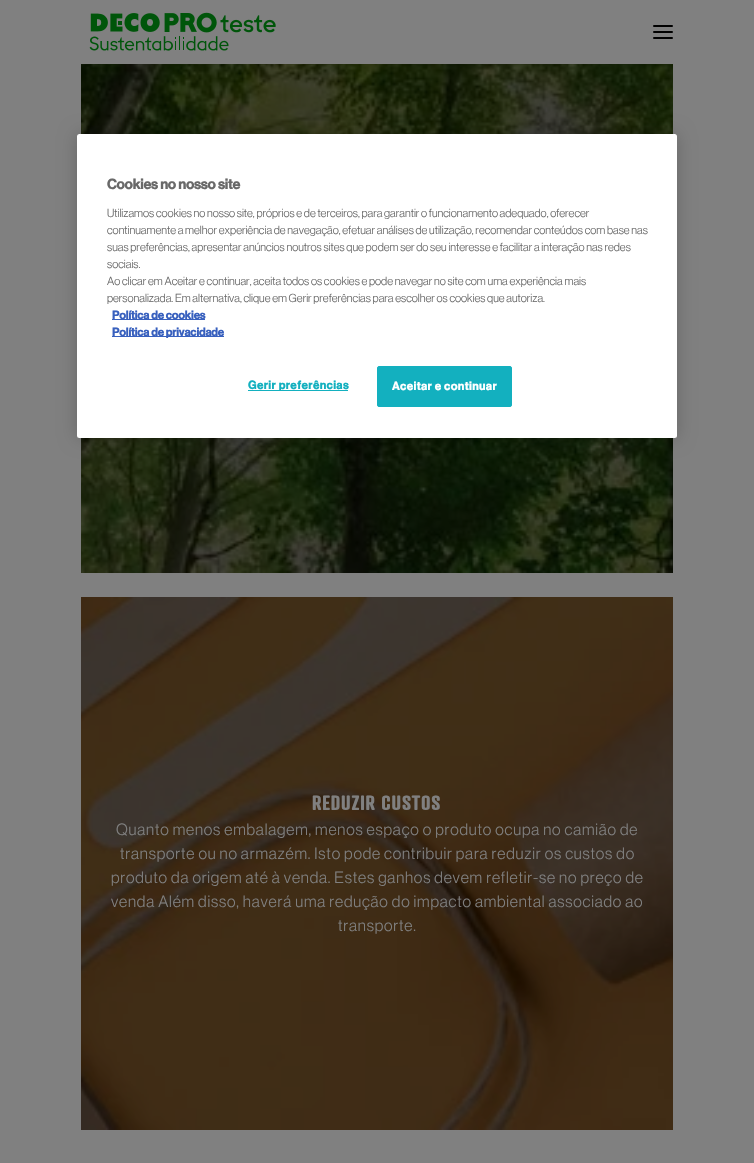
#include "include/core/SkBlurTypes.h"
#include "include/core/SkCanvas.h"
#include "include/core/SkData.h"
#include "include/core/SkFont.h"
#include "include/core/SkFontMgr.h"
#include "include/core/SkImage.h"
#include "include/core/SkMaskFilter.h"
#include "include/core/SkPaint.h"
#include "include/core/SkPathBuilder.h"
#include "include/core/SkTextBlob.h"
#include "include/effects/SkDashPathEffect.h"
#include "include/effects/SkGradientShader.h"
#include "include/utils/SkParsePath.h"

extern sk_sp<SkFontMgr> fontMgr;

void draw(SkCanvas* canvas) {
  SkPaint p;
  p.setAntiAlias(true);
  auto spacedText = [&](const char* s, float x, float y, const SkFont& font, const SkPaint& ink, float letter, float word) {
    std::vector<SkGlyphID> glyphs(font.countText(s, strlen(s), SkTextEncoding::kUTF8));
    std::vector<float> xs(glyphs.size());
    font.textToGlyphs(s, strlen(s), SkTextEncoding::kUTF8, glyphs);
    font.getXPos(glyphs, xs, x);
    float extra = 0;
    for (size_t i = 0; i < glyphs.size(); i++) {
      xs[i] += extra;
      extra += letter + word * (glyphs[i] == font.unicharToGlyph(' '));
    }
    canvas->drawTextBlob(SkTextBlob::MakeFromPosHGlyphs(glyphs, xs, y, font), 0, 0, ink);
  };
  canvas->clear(SkColorSetRGB(128, 128, 128));
  canvas->drawImageRect(SkImages::DeferredFromEncodedData(SkData::MakeFromFileName("images/1.png")), SkRect::MakeLTRB(89, 12, 276, 51), SkSamplingOptions());
  p.setColor(SK_ColorBLACK);
  canvas->drawRoundRect(SkRect::MakeLTRB(653, 25, 673, 27), 1, 1, p);
  canvas->drawRoundRect(SkRect::MakeLTRB(653, 31, 673, 33), 1, 1, p);
  canvas->drawRoundRect(SkRect::MakeLTRB(653, 37, 673, 39), 1, 1, p);
  canvas->drawImageRect(SkImages::DeferredFromEncodedData(SkData::MakeFromFileName("images/2.png")), SkRect::MakeLTRB(81, 64, 673, 573), SkSamplingOptions());
  p.setColor(SkColorSetARGB(51, 0, 0, 0));
  p.setMaskFilter(SkMaskFilter::MakeBlur(kNormal_SkBlurStyle, 9));
  canvas->drawRoundRect(SkRect::MakeLTRB(77, 134, 677, 438), 2.5f, 2.5f, p);
  p.setMaskFilter(nullptr);
  p.setColor(SK_ColorWHITE);
  canvas->drawRoundRect(SkRect::MakeLTRB(77, 134, 677, 438), 2.5f, 2.5f, p);
  p.setColor(SkColorSetRGB(56, 96, 190));
  canvas->drawRect(SkRect::MakeLTRB(112, 319, 205, 320), p);
  canvas->drawRect(SkRect::MakeLTRB(112, 336, 224, 337), p);
  p.setColor(SkColorSetRGB(19, 176, 191));
  canvas->drawRect(SkRect::MakeLTRB(248, 390, 348, 391), p);
  canvas->drawRoundRect(SkRect::MakeLTRB(377.5f, 366.5f, 511.5f, 406.5f), 1.5f, 1.5f, p);
  p.setStyle(SkPaint::kStroke_Style);
  p.setStrokeWidth(1);
  canvas->drawRoundRect(SkRect::MakeLTRB(377.5f, 366.5f, 511.5f, 406.5f), 1.5f, 1.5f, p);
  canvas->drawImageRect(SkImages::DeferredFromEncodedData(SkData::MakeFromFileName("images/3.png")), SkRect::MakeLTRB(81, 597, 673, 1130), SkSamplingOptions());
  SkFont font1(fontMgr->matchFamilyStyle("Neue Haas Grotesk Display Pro", SkFontStyle::Bold()), 14);
  font1.setSubpixel(true);
  p.setStyle(SkPaint::kFill_Style);
  p.setColor(SkColorSetRGB(105, 105, 105));
  canvas->drawString("Cookies no nosso site", 107, 189, font1, p);
  SkFont font2(fontMgr->matchFamilyStyle("Neue Haas Grotesk Display Pro", SkFontStyle::Normal()), 11.4f);
  font2.setSubpixel(true);
  canvas->drawString("Utilizamos cookies no nosso site, próprios e de terceiros, para garantir o funcionamento adequado, oferecer", 107, 217, font2, p);
  canvas->drawString("continuamente a melhor experiência de navegação, efetuar análises de utilização, recomendar conteúdos com base nas", 107, 234, font2, p);
  canvas->drawString("suas preferências, apresentar anúncios noutros sites que podem ser do seu interesse e facilitar a interação nas redes", 107, 251, font2, p);
  canvas->drawString("sociais.", 107, 268, font2, p);
  canvas->drawString("Ao clicar em Aceitar e continuar, aceita todos os cookies e pode navegar no site com uma experiência mais", 107, 285, font2, p);
  canvas->drawString("personalizada. Em alternativa, clique em Gerir preferências para escolher os cookies que autoriza.", 107, 302, font2, p);
  SkFont font3(fontMgr->matchFamilyStyle("Neue Haas Grotesk Display Pro", SkFontStyle::Bold()), 11.4f);
  font3.setSubpixel(true);
  p.setColor(SkColorSetRGB(56, 96, 190));
  canvas->drawString("Política de cookies", 112, 319, font3, p);
  canvas->drawString("Política de privacidade", 112, 336, font3, p);
  p.setColor(SkColorSetRGB(19, 176, 191));
  spacedText("Gerir preferências", 248, 389, font3, p, 0.6f, 0);
  p.setColor(SK_ColorWHITE);
  spacedText("Aceitar e continuar", 392, 390, font3, p, 0.6f, 0);
  SkFont font4(fontMgr->matchFamilyStyle("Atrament", SkFontStyle::Bold()), 20);
  font4.setSubpixel(true);
  p.setColor(SkColorSetRGB(128, 128, 128));
  spacedText("REDUZIR CUSTOS", 312, 810, font4, p, 0.8f, 0);
  SkFont font5(fontMgr->matchFamilyStyle("Neue Haas Grotesk Display Pro", SkFontStyle::Normal()), 16);
  font5.setSubpixel(true);
  spacedText("Quanto menos embalagem, menos espaço o produto ocupa no camião de", 116, 835, font5, p, 0.8f, 0);
  spacedText("transporte ou no armazém. Isto pode contribuir para reduzir os custos do", 120, 859, font5, p, 0.8f, 0);
  spacedText("produto da origem até à venda. Estes ganhos devem refletir-se no preço de", 111, 883, font5, p, 0.8f, 0);
  spacedText("venda Além disso, haverá uma redução do impacto ambiental associado ao", 111, 907, font5, p, 0.8f, 0);
  spacedText("transporte.", 338, 931, font5, p, 0.8f, 0);
}
